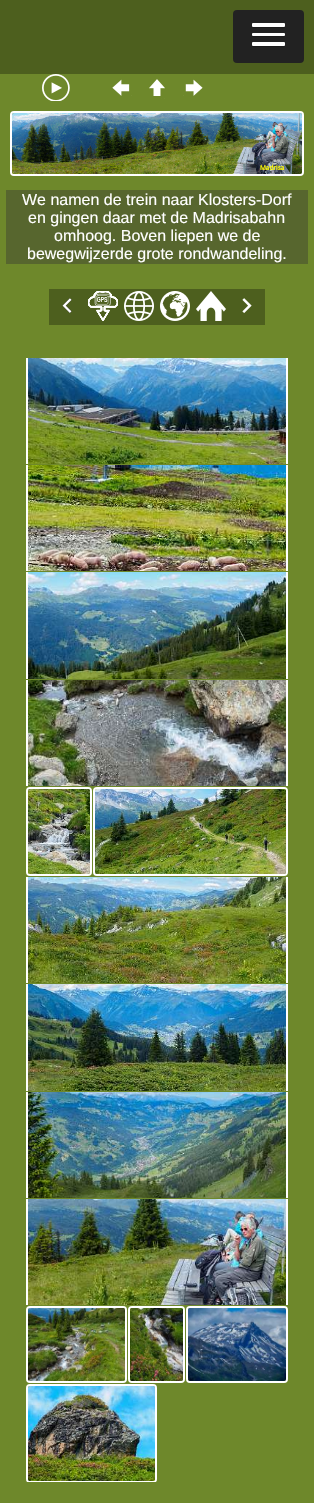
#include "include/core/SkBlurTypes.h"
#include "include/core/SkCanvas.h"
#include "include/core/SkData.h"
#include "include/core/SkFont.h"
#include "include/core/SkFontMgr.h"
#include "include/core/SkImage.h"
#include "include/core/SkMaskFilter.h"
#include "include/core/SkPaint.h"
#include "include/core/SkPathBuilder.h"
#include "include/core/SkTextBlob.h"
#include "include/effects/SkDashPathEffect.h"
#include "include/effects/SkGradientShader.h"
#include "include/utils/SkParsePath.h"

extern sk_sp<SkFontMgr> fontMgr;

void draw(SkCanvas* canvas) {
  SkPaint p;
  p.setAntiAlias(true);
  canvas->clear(SkColorSetRGB(110, 136, 43));
  p.setColor(SkColorSetRGB(77, 95, 30));
  canvas->drawRect(SkRect::MakeLTRB(0, 0, 314, 74), p);
  p.setColor(SkColorSetRGB(34, 34, 34));
  canvas->drawRoundRect(SkRect::MakeLTRB(233, 10, 304, 63), 4, 4, p);
  p.setColor(SkColorSetRGB(26, 26, 26));
  canvas->drawPath(SkPathBuilder().moveTo(252, 26).cubicTo(252, 29.5f, 254.5f, 28, 258, 28).lineTo(279, 28).cubicTo(282.5f, 28, 285, 29.5f, 285, 26).cubicTo(285, 28, 281, 27, 279, 27).lineTo(252.5f, 27).close().detach(), p);
  p.setColor(SK_ColorWHITE);
  canvas->drawRoundRect(SkRect::MakeLTRB(252, 23, 285, 27), 1, 1, p);
  p.setColor(SkColorSetRGB(26, 26, 26));
  canvas->drawPath(SkPathBuilder().moveTo(252, 35).cubicTo(252, 38.5f, 254.5f, 37, 258, 37).lineTo(279, 37).cubicTo(282.5f, 37, 285, 38.5f, 285, 35).cubicTo(285, 37, 281, 36, 279, 36).lineTo(252.5f, 36).close().detach(), p);
  p.setColor(SK_ColorWHITE);
  canvas->drawRoundRect(SkRect::MakeLTRB(252, 33, 285, 36), 1, 1, p);
  p.setColor(SkColorSetRGB(26, 26, 26));
  canvas->drawPath(SkPathBuilder().moveTo(252, 45).cubicTo(252, 48.5f, 254.5f, 47, 258, 47).lineTo(279, 47).cubicTo(282.5f, 47, 285, 48.5f, 285, 45).cubicTo(285, 47, 281, 46, 279, 46).lineTo(252.5f, 46).close().detach(), p);
  p.setColor(SK_ColorWHITE);
  canvas->drawRoundRect(SkRect::MakeLTRB(252, 42, 285, 46), 1, 1, p);
  canvas->drawImageRect(SkImages::DeferredFromEncodedData(SkData::MakeFromFileName("images/1.png")), SkRect::MakeLTRB(42, 74, 70, 101), SkSamplingOptions());
  canvas->drawImageRect(SkImages::DeferredFromEncodedData(SkData::MakeFromFileName("images/2.png")), SkRect::MakeLTRB(112, 79, 132, 96), SkSamplingOptions());
  canvas->drawImageRect(SkImages::DeferredFromEncodedData(SkData::MakeFromFileName("images/3.png")), SkRect::MakeLTRB(149, 79, 165, 99), SkSamplingOptions());
  canvas->drawImageRect(SkImages::DeferredFromEncodedData(SkData::MakeFromFileName("images/4.png")), SkRect::MakeLTRB(183, 79, 203, 96), SkSamplingOptions());
  p.setStyle(SkPaint::kStroke_Style);
  p.setStrokeWidth(2);
  canvas->drawRoundRect(SkRect::MakeLTRB(11, 112, 303, 175), 3, 3, p);
  canvas->drawImageRect(SkImages::DeferredFromEncodedData(SkData::MakeFromFileName("images/5.png")), SkRect::MakeLTRB(12, 113, 302, 174), SkSamplingOptions());
  p.setStyle(SkPaint::kFill_Style);
  p.setColor(SkColorSetRGB(87, 102, 46));
  canvas->drawRect(SkRect::MakeLTRB(6, 190, 308, 264), p);
  p.setColor(SkColorSetRGB(77, 95, 30));
  canvas->drawRect(SkRect::MakeLTRB(49, 289, 265, 325), p);
  canvas->drawImageRect(SkImages::DeferredFromEncodedData(SkData::MakeFromFileName("images/6.png")), SkRect::MakeLTRB(62, 298, 72, 313), SkSamplingOptions());
  canvas->drawImageRect(SkImages::DeferredFromEncodedData(SkData::MakeFromFileName("images/7.png")), SkRect::MakeLTRB(88, 291, 118, 321), SkSamplingOptions());
  canvas->drawImageRect(SkImages::DeferredFromEncodedData(SkData::MakeFromFileName("images/8.png")), SkRect::MakeLTRB(124, 291, 154, 321), SkSamplingOptions());
  canvas->drawImageRect(SkImages::DeferredFromEncodedData(SkData::MakeFromFileName("images/9.png")), SkRect::MakeLTRB(160, 291, 190, 321), SkSamplingOptions());
  canvas->drawImageRect(SkImages::DeferredFromEncodedData(SkData::MakeFromFileName("images/10.png")), SkRect::MakeLTRB(196, 291, 226, 321), SkSamplingOptions());
  canvas->drawImageRect(SkImages::DeferredFromEncodedData(SkData::MakeFromFileName("images/11.png")), SkRect::MakeLTRB(242, 298, 252, 313), SkSamplingOptions());
  canvas->save();
  canvas->clipRect(SkRect::MakeLTRB(26, 358, 288, 464));
  p.setStyle(SkPaint::kStroke_Style);
  p.setColor(SK_ColorWHITE);
  canvas->drawRoundRect(SkRect::MakeLTRB(27, 352, 287, 470), 3, 3, p);
  canvas->restore();
  canvas->drawImageRect(SkImages::DeferredFromEncodedData(SkData::MakeFromFileName("images/12.png")), SkRect::MakeLTRB(28, 358, 286, 464), SkSamplingOptions());
  canvas->save();
  canvas->clipRect(SkRect::MakeLTRB(26, 465, 288, 571));
  canvas->drawRoundRect(SkRect::MakeLTRB(27, 440, 287, 597), 3, 3, p);
  canvas->restore();
  canvas->drawImageRect(SkImages::DeferredFromEncodedData(SkData::MakeFromFileName("images/13.png")), SkRect::MakeLTRB(28, 465, 286, 571), SkSamplingOptions());
  canvas->save();
  canvas->clipRect(SkRect::MakeLTRB(26, 572, 288, 679));
  canvas->drawRoundRect(SkRect::MakeLTRB(27, 567, 287, 685), 3, 3, p);
  canvas->restore();
  canvas->drawImageRect(SkImages::DeferredFromEncodedData(SkData::MakeFromFileName("images/14.png")), SkRect::MakeLTRB(28, 572, 286, 679), SkSamplingOptions());
  canvas->save();
  canvas->clipRect(SkRect::MakeLTRB(26, 680, 288, 786));
  canvas->drawRoundRect(SkRect::MakeLTRB(27, 662, 287, 805), 3, 3, p);
  canvas->restore();
  canvas->drawImageRect(SkImages::DeferredFromEncodedData(SkData::MakeFromFileName("images/15.png")), SkRect::MakeLTRB(28, 680, 286, 786), SkSamplingOptions());
  canvas->drawRoundRect(SkRect::MakeLTRB(27, 788, 91, 875), 3, 3, p);
  canvas->drawImageRect(SkImages::DeferredFromEncodedData(SkData::MakeFromFileName("images/16.png")), SkRect::MakeLTRB(28, 789, 90, 874), SkSamplingOptions());
  canvas->drawRoundRect(SkRect::MakeLTRB(94, 788, 287, 875), 3, 3, p);
  canvas->drawImageRect(SkImages::DeferredFromEncodedData(SkData::MakeFromFileName("images/17.png")), SkRect::MakeLTRB(95, 789, 286, 874), SkSamplingOptions());
  canvas->save();
  canvas->clipRect(SkRect::MakeLTRB(26, 877, 288, 983));
  canvas->drawRoundRect(SkRect::MakeLTRB(27, 871, 287, 989), 3, 3, p);
  canvas->restore();
  canvas->drawImageRect(SkImages::DeferredFromEncodedData(SkData::MakeFromFileName("images/18.png")), SkRect::MakeLTRB(28, 877, 286, 983), SkSamplingOptions());
  canvas->save();
  canvas->clipRect(SkRect::MakeLTRB(26, 984, 288, 1091));
  canvas->drawRoundRect(SkRect::MakeLTRB(27, 978, 287, 1096), 3, 3, p);
  canvas->restore();
  canvas->drawImageRect(SkImages::DeferredFromEncodedData(SkData::MakeFromFileName("images/19.png")), SkRect::MakeLTRB(28, 984, 286, 1091), SkSamplingOptions());
  canvas->save();
  canvas->clipRect(SkRect::MakeLTRB(26, 1092, 288, 1198));
  canvas->drawRoundRect(SkRect::MakeLTRB(27, 1085, 287, 1205), 3, 3, p);
  canvas->restore();
  canvas->drawImageRect(SkImages::DeferredFromEncodedData(SkData::MakeFromFileName("images/20.png")), SkRect::MakeLTRB(28, 1092, 286, 1198), SkSamplingOptions());
  canvas->save();
  canvas->clipRect(SkRect::MakeLTRB(26, 1199, 288, 1305));
  canvas->drawRoundRect(SkRect::MakeLTRB(27, 1193, 287, 1311), 3, 3, p);
  canvas->restore();
  canvas->drawImageRect(SkImages::DeferredFromEncodedData(SkData::MakeFromFileName("images/21.png")), SkRect::MakeLTRB(28, 1199, 286, 1305), SkSamplingOptions());
  canvas->drawRoundRect(SkRect::MakeLTRB(27, 1307, 126, 1382), 3, 3, p);
  canvas->drawImageRect(SkImages::DeferredFromEncodedData(SkData::MakeFromFileName("images/22.png")), SkRect::MakeLTRB(28, 1308, 125, 1381), SkSamplingOptions());
  canvas->drawRoundRect(SkRect::MakeLTRB(129, 1307, 184, 1382), 3, 3, p);
  canvas->drawImageRect(SkImages::DeferredFromEncodedData(SkData::MakeFromFileName("images/23.png")), SkRect::MakeLTRB(130, 1308, 183, 1381), SkSamplingOptions());
  canvas->drawRoundRect(SkRect::MakeLTRB(187, 1307, 287, 1382), 3, 3, p);
  canvas->drawImageRect(SkImages::DeferredFromEncodedData(SkData::MakeFromFileName("images/24.png")), SkRect::MakeLTRB(188, 1308, 286, 1381), SkSamplingOptions());
  canvas->save();
  canvas->clipRect(SkRect::MakeLTRB(26, 1384, 157, 1482));
  canvas->drawRoundRect(SkRect::MakeLTRB(27, 1385, 156, 1482), 3, 3, p);
  canvas->restore();
  canvas->drawImageRect(SkImages::DeferredFromEncodedData(SkData::MakeFromFileName("images/25.png")), SkRect::MakeLTRB(28, 1386, 155, 1481), SkSamplingOptions());
  SkFont font1(fontMgr->matchFamilyStyle("Open Sans", SkFontStyle::Bold()), 6.5f);
  font1.setSubpixel(true);
  p.setStyle(SkPaint::kFill_Style);
  p.setColor(SkColorSetRGB(255, 255, 0));
  canvas->drawString("Madrisa", 260, 170, font1, p);
  SkFont font2(fontMgr->matchFamilyStyle("Liberation Sans", SkFontStyle::Normal()), 16);
  font2.setSubpixel(true);
  p.setColor(SK_ColorWHITE);
  canvas->drawString("We namen de trein naar Klosters-Dorf", 22, 205, font2, p);
  canvas->drawString("en gingen daar met de Madrisabahn", 28, 223, font2, p);
  canvas->drawString("omhoog. Boven liepen we de", 54, 241, font2, p);
  canvas->drawString("bewegwijzerde grote rondwandeling.", 27, 259, font2, p);
}
